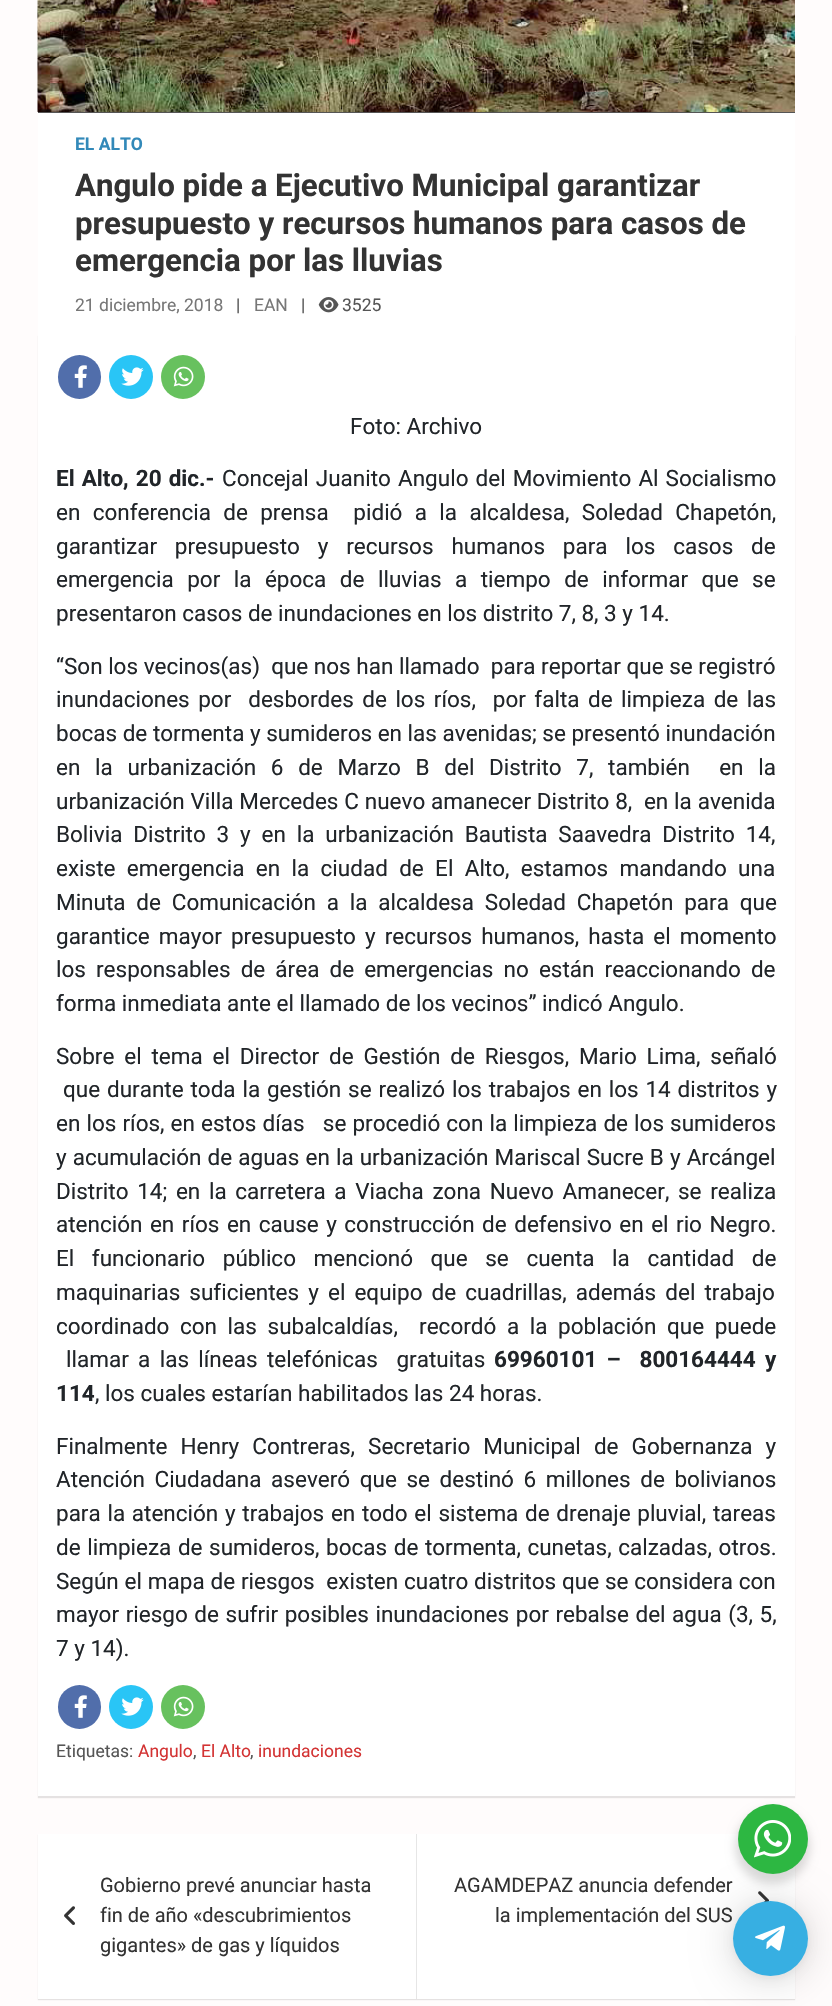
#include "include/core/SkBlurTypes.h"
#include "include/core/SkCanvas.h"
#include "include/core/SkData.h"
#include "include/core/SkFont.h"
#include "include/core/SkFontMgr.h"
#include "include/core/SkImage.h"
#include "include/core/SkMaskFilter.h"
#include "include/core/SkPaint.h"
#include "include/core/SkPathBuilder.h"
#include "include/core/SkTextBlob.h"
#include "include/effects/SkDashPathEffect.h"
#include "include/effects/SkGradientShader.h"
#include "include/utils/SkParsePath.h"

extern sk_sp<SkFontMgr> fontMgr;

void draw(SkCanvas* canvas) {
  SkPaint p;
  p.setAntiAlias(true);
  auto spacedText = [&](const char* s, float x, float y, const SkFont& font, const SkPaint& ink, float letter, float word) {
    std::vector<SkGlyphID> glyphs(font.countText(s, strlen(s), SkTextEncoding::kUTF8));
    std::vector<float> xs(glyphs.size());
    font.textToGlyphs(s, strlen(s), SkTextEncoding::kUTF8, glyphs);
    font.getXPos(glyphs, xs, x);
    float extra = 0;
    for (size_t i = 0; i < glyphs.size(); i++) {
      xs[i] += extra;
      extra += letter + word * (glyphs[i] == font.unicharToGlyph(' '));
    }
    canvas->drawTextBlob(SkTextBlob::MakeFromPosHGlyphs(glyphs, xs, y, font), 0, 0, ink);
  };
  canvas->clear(SkColorSetRGB(255, 252, 252));
  p.setColor(SK_ColorWHITE);
  canvas->drawRect(SkRect::MakeLTRB(38, 113, 795, 335), p);
  p.setColor(SkColorSetRGB(85, 85, 85));
  canvas->drawRect(SkRect::MakeLTRB(38, 112, 795, 113), p);
  canvas->drawImageRect(SkImages::DeferredFromEncodedData(SkData::MakeFromFileName("images/1.png")), SkRect::MakeLTRB(37, 0, 795, 112), SkSamplingOptions());
  canvas->drawImageRect(SkImages::DeferredFromEncodedData(SkData::MakeFromFileName("images/2.png")), SkRect::MakeLTRB(318, 297, 339, 313), SkSamplingOptions());
  p.setColor(SkColorSetARGB(26, 0, 0, 0));
  p.setMaskFilter(SkMaskFilter::MakeBlur(kNormal_SkBlurStyle, 0.5f));
  canvas->drawRect(SkRect::MakeLTRB(38, 336, 795, 1798), p);
  p.setMaskFilter(nullptr);
  p.setColor(SK_ColorWHITE);
  canvas->drawRect(SkRect::MakeLTRB(38, 335, 795, 1796), p);
  p.setColor(SkColorSetRGB(81, 110, 171));
  canvas->drawRoundRect(SkRect::MakeLTRB(58, 355, 101, 399), 21.5f, 21.5f, p);
  canvas->drawImageRect(SkImages::DeferredFromEncodedData(SkData::MakeFromFileName("images/3.png")), SkRect::MakeLTRB(74, 365, 87, 388), SkSamplingOptions());
  p.setColor(SkColorSetRGB(41, 197, 246));
  canvas->drawCircle(131, 377, 22, p);
  canvas->drawImageRect(SkImages::DeferredFromEncodedData(SkData::MakeFromFileName("images/4.png")), SkRect::MakeLTRB(121, 367, 144, 386), SkSamplingOptions());
  p.setColor(SkColorSetRGB(103, 193, 94));
  canvas->drawCircle(183, 377, 22, p);
  canvas->drawImageRect(SkImages::DeferredFromEncodedData(SkData::MakeFromFileName("images/5.png")), SkRect::MakeLTRB(173, 366, 194, 387), SkSamplingOptions());
  p.setColor(SkColorSetRGB(81, 110, 171));
  canvas->drawRoundRect(SkRect::MakeLTRB(58, 1685, 101, 1729), 21.5f, 21.5f, p);
  canvas->drawImageRect(SkImages::DeferredFromEncodedData(SkData::MakeFromFileName("images/3.png")), SkRect::MakeLTRB(74, 1695, 87, 1718), SkSamplingOptions());
  p.setColor(SkColorSetRGB(41, 197, 246));
  canvas->drawCircle(131, 1707, 22, p);
  canvas->drawImageRect(SkImages::DeferredFromEncodedData(SkData::MakeFromFileName("images/4.png")), SkRect::MakeLTRB(121, 1697, 144, 1716), SkSamplingOptions());
  p.setColor(SkColorSetRGB(103, 193, 94));
  canvas->drawCircle(183, 1707, 22, p);
  canvas->drawImageRect(SkImages::DeferredFromEncodedData(SkData::MakeFromFileName("images/5.png")), SkRect::MakeLTRB(173, 1696, 194, 1717), SkSamplingOptions());
  p.setColor(SkColorSetARGB(26, 0, 0, 0));
  p.setMaskFilter(SkMaskFilter::MakeBlur(kNormal_SkBlurStyle, 0.5f));
  canvas->drawRect(SkRect::MakeLTRB(38, 1835, 795, 2000), p);
  p.setMaskFilter(nullptr);
  p.setColor(SK_ColorWHITE);
  canvas->drawRect(SkRect::MakeLTRB(38, 1834, 795, 1999), p);
  canvas->drawImageRect(SkImages::DeferredFromEncodedData(SkData::MakeFromFileName("images/6.png")), SkRect::MakeLTRB(64, 1906, 75, 1925), SkSamplingOptions());
  p.setColor(SkColorSetRGB(230, 230, 230));
  canvas->drawRect(SkRect::MakeLTRB(416, 1834, 417, 1999), p);
  canvas->drawImageRect(SkImages::DeferredFromEncodedData(SkData::MakeFromFileName("images/7.png")), SkRect::MakeLTRB(758, 1891, 769, 1902), SkSamplingOptions());
  p.setColor(SkColorSetARGB(36, 0, 0, 0));
  p.setMaskFilter(SkMaskFilter::MakeBlur(kNormal_SkBlurStyle, 5));
  canvas->drawRoundRect(SkRect::MakeLTRB(735, 1809, 810, 1884), 37.5f, 37.5f, p);
  p.setMaskFilter(nullptr);
  p.setColor(SkColorSetARGB(41, 0, 0, 0));
  p.setMaskFilter(SkMaskFilter::MakeBlur(kNormal_SkBlurStyle, 20));
  canvas->drawRoundRect(SkRect::MakeLTRB(733, 1904, 808, 1979), 37.5f, 37.5f, p);
  p.setMaskFilter(nullptr);
  p.setColor(SkColorSetRGB(45, 183, 66));
  canvas->drawCircle(773, 1839, 35, p);
  canvas->drawImageRect(SkImages::DeferredFromEncodedData(SkData::MakeFromFileName("images/8.png")), SkRect::MakeLTRB(754, 1820, 791, 1858), SkSamplingOptions());
  p.setColor(SkColorSetARGB(15, 0, 0, 0));
  p.setMaskFilter(SkMaskFilter::MakeBlur(kNormal_SkBlurStyle, 4));
  canvas->drawRoundRect(SkRect::MakeLTRB(733, 1903, 808, 1978), 37.5f, 37.5f, p);
  p.setMaskFilter(nullptr);
  p.setColor(SkColorSetRGB(55, 175, 226));
  canvas->drawCircle(770.5f, 1938.5f, 37.5f, p);
  canvas->drawImageRect(SkImages::DeferredFromEncodedData(SkData::MakeFromFileName("images/9.png")), SkRect::MakeLTRB(755, 1925, 785, 1951), SkSamplingOptions());
  SkFont font1(fontMgr->matchFamilyStyle("Roboto", SkFontStyle::Bold()), 17.5f);
  font1.setSubpixel(true);
  p.setColor(SkColorSetRGB(50, 137, 185));
  canvas->drawString("EL ALTO", 75, 150, font1, p);
  SkFont font2(fontMgr->matchFamilyStyle("Roboto", SkFontStyle::Bold()), 31.25f);
  font2.setSubpixel(true);
  p.setColor(SkColorSetRGB(51, 51, 51));
  canvas->drawString("Angulo pide a Ejecutivo Municipal garantizar", 75, 196, font2, p);
  canvas->drawString("presupuesto y recursos humanos para casos de", 75, 234, font2, p);
  canvas->drawString("emergencia por las lluvias", 75, 271, font2, p);
  SkFont font3(fontMgr->matchFamilyStyle("Roboto", SkFontStyle::Normal()), 17.5f);
  font3.setSubpixel(true);
  p.setColor(SkColorSetRGB(119, 119, 119));
  canvas->drawString("21 diciembre, 2018", 75, 311, font3, p);
  p.setColor(SkColorSetRGB(85, 85, 85));
  canvas->drawString("|", 236, 311, font3, p);
  p.setColor(SkColorSetRGB(119, 119, 119));
  canvas->drawString("EAN", 254, 311, font3, p);
  p.setColor(SkColorSetRGB(85, 85, 85));
  canvas->drawString("|", 301, 311, font3, p);
  canvas->drawString("3525", 342, 311, font3, p);
  SkFont font4(fontMgr->matchFamilyStyle("Roboto", SkFontStyle::Normal()), 22.5f);
  font4.setSubpixel(true);
  p.setColor(SkColorSetRGB(33, 37, 41));
  canvas->drawString("Foto: Archivo", 350, 434, font4, p);
  SkFont font5(fontMgr->matchFamilyStyle("Roboto", SkFontStyle::Bold()), 22.5f);
  font5.setSubpixel(true);
  spacedText("El Alto, 20 dic.-", 56, 486, font5, p, 0, 1.5f);
  spacedText("Concejal Juanito Angulo del Movimiento Al Socialismo", 222, 486, font4, p, 0, 1.5f);
  spacedText("en conferencia de prensa  pidió a la alcaldesa, Soledad Chapetón,", 56, 520, font4, p, 0, 6.75f);
  spacedText("garantizar presupuesto y recursos humanos para los casos de", 56, 554, font4, p, 0, 12.25f);
  spacedText("emergencia por la época de lluvias a tiempo de informar que se", 56, 587, font4, p, 0, 7.9f);
  canvas->drawString("presentaron casos de inundaciones en los distrito 7, 8, 3 y 14.", 56, 621, font4, p);
  canvas->drawString("“Son los vecinos(as)  que nos han llamado  para reportar que se registró", 56, 674, font4, p);
  spacedText("inundaciones por  desbordes de los ríos,  por falta de limpieza de las", 56, 707, font4, p, 0, 2.9f);
  canvas->drawString("bocas de tormenta y sumideros en las avenidas; se presentó inundación", 56, 741, font4, p);
  spacedText("en la urbanización 6 de Marzo B del Distrito 7, también  en la", 56, 775, font4, p, 0, 9.1f);
  spacedText("urbanización Villa Mercedes C nuevo amanecer Distrito 8,  en la avenida", 56, 809, font4, p, 0, 0.25f);
  spacedText("Bolivia Distrito 3 y en la urbanización Bautista Saavedra Distrito 14,", 56, 842, font4, p, 0, 5.25f);
  spacedText("existe emergencia en la ciudad de El Alto, estamos mandando una", 56, 876, font4, p, 0, 5.75f);
  spacedText("Minuta de Comunicación a la alcaldesa Soledad Chapetón para que", 56, 910, font4, p, 0, 5.25f);
  spacedText("garantice mayor presupuesto y recursos humanos, hasta el momento", 56, 944, font4, p, 0, 3.5f);
  spacedText("los responsables de área de emergencias no están reaccionando de", 56, 977, font4, p, 0, 4.5f);
  canvas->drawString("forma inmediata ante el llamado de los vecinos” indicó Angulo.", 56, 1011, font4, p);
  spacedText("Sobre el tema el Director de Gestión de Riesgos, Mario Lima, señaló", 56, 1064, font4, p, 0, 4.25f);
  spacedText("que durante toda la gestión se realizó los trabajos en los 14 distritos y", 63, 1097, font4, p, 0, 1.25f);
  spacedText("en los ríos, en estos días   se procedió con la limpieza de los sumideros", 56, 1131, font4, p, 0, 0.5f);
  spacedText("y acumulación de aguas en la urbanización Mariscal Sucre B y Arcángel", 56, 1165, font4, p, 0, 0.5f);
  spacedText("Distrito 14; en la carretera a Viacha zona Nuevo Amanecer, se realiza", 56, 1199, font4, p, 0, 3.1f);
  spacedText("atención en ríos en cause y construcción de defensivo en el rio Negro.", 56, 1232, font4, p, 0, 1.9f);
  spacedText("El funcionario público mencionó que se cuenta la cantidad de", 56, 1266, font4, p, 0, 12);
  spacedText("maquinarias suficientes y el equipo de cuadrillas, además del trabajo", 56, 1300, font4, p, 0, 3.5f);
  spacedText("coordinado con las subalcaldías,  recordó a la población que puede", 56, 1334, font4, p, 0, 5);
  spacedText("llamar a las líneas telefónicas  gratuitas", 66, 1367, font4, p, 0, 3.75f);
  spacedText("69960101 –  800164444 y", 494, 1367, font5, p, 0, 3.75f);
  canvas->drawString("114", 56, 1401, font5, p);
  canvas->drawString(", los cuales estarían habilitados las 24 horas.", 95, 1401, font4, p);
  spacedText("Finalmente Henry Contreras, Secretario Municipal de Gobernanza y", 56, 1454, font4, p, 0, 7.5f);
  spacedText("Atención Ciudadana aseveró que se destinó 6 millones de bolivianos", 56, 1487, font4, p, 0, 4);
  spacedText("para la atención y trabajos en todo el sistema de drenaje pluvial, tareas", 56, 1521, font4, p, 0, 1.1f);
  spacedText("de limpieza de sumideros, bocas de tormenta, cunetas, calzadas, otros.", 56, 1555, font4, p, 0, 1);
  spacedText("Según el mapa de riesgos  existen cuatro distritos que se considera con", 56, 1589, font4, p, 0, 0.25f);
  spacedText("mayor riesgo de sufrir posibles inundaciones por rebalse del agua (3, 5,", 56, 1622, font4, p, 0, 1);
  canvas->drawString("7 y 14).", 56, 1656, font4, p);
  p.setColor(SkColorSetRGB(85, 85, 85));
  canvas->drawString("Etiquetas:", 56, 1757, font3, p);
  p.setColor(SkColorSetRGB(211, 51, 51));
  canvas->drawString("Angulo", 138, 1757, font3, p);
  p.setColor(SkColorSetRGB(85, 85, 85));
  canvas->drawString(",", 193, 1757, font3, p);
  p.setColor(SkColorSetRGB(211, 51, 51));
  canvas->drawString("El Alto", 201, 1757, font3, p);
  p.setColor(SkColorSetRGB(85, 85, 85));
  canvas->drawString(",", 250, 1757, font3, p);
  p.setColor(SkColorSetRGB(211, 51, 51));
  canvas->drawString("inundaciones", 258, 1757, font3, p);
  SkFont font6(fontMgr->matchFamilyStyle("Roboto", SkFontStyle::Normal()), 20);
  font6.setSubpixel(true);
  p.setColor(SkColorSetRGB(51, 51, 51));
  canvas->drawString("Gobierno prevé anunciar hasta", 100, 1892, font6, p);
  canvas->drawString("fin de año «descubrimientos", 100, 1922, font6, p);
  canvas->drawString("gigantes» de gas y líquidos", 100, 1952, font6, p);
  canvas->drawString("AGAMDEPAZ anuncia defender", 454, 1892, font6, p);
  canvas->drawString("la implementación del SUS", 495, 1922, font6, p);
}
